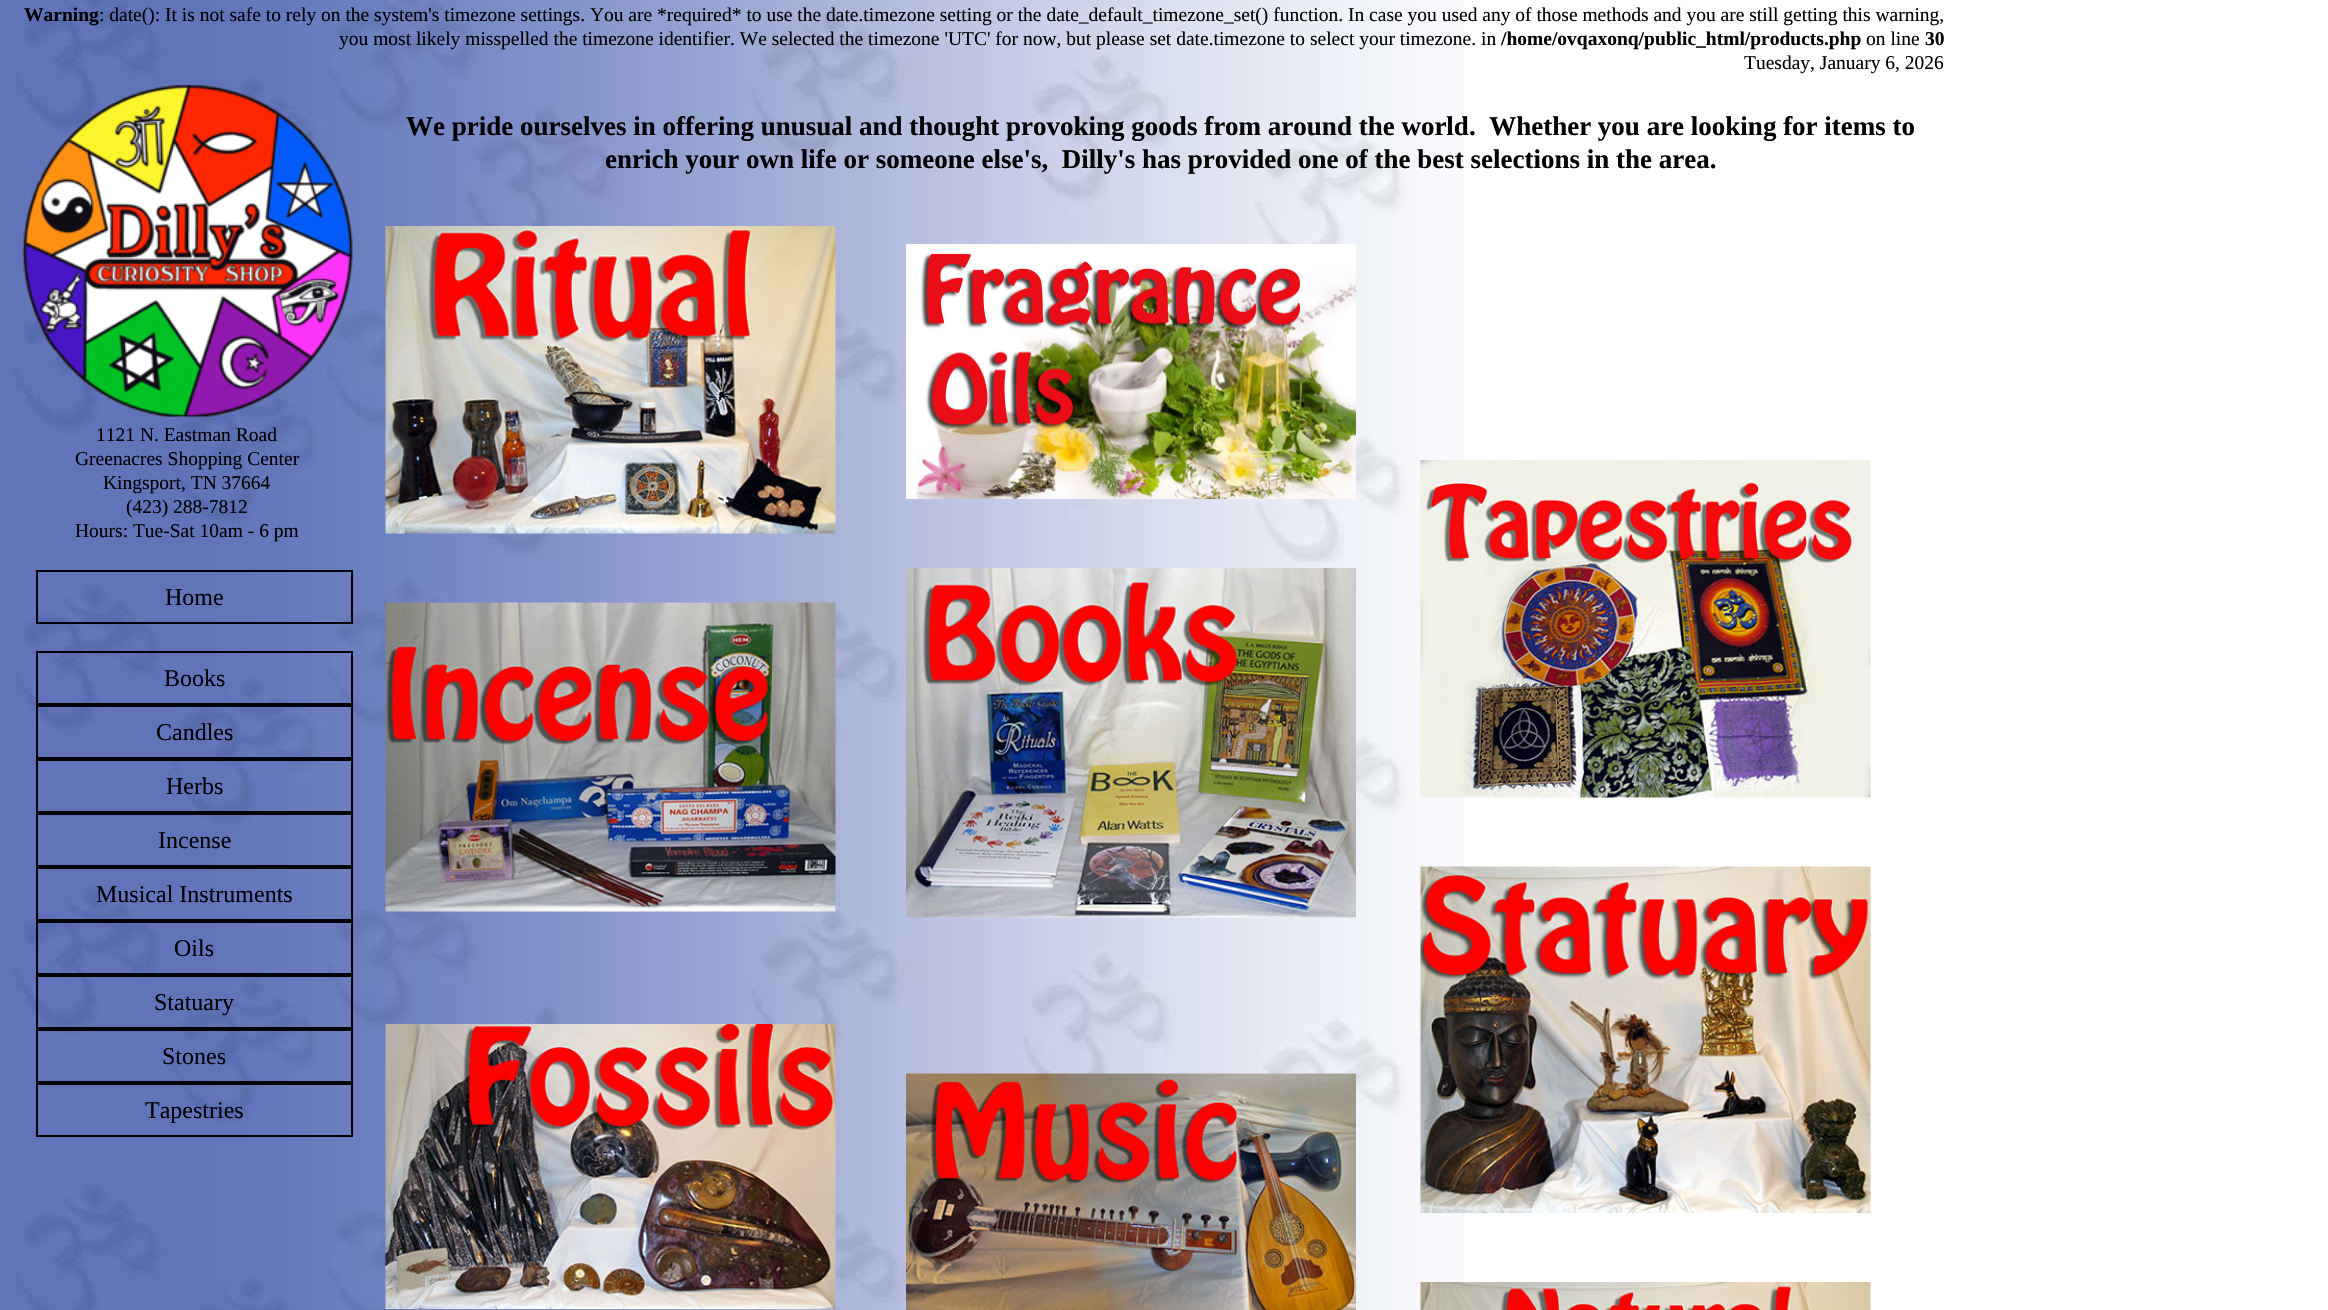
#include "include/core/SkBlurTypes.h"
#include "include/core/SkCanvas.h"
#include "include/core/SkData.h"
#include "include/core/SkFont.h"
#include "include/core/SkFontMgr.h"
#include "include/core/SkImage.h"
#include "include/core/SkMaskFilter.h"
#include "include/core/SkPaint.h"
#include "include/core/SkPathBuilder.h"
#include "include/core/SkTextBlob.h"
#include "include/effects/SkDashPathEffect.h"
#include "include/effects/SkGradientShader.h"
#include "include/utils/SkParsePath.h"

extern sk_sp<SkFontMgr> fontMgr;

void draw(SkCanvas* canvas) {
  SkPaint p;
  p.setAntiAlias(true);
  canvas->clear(SK_ColorWHITE);
  canvas->drawImageRect(SkImages::DeferredFromEncodedData(SkData::MakeFromFileName("images/1.png")), SkRect::MakeLTRB(0, 0, 1464, 1310), SkSamplingOptions());
  canvas->drawImageRect(SkImages::DeferredFromEncodedData(SkData::MakeFromFileName("images/2.png")), SkRect::MakeLTRB(385, 226, 836, 534), SkSamplingOptions());
  canvas->drawImageRect(SkImages::DeferredFromEncodedData(SkData::MakeFromFileName("images/3.png")), SkRect::MakeLTRB(385, 602, 836, 912), SkSamplingOptions());
  canvas->drawImageRect(SkImages::DeferredFromEncodedData(SkData::MakeFromFileName("images/4.png")), SkRect::MakeLTRB(385, 1024, 836, 1309), SkSamplingOptions());
  canvas->drawImageRect(SkImages::DeferredFromEncodedData(SkData::MakeFromFileName("images/5.png")), SkRect::MakeLTRB(906, 244, 1356, 499), SkSamplingOptions());
  canvas->drawImageRect(SkImages::DeferredFromEncodedData(SkData::MakeFromFileName("images/6.png")), SkRect::MakeLTRB(906, 568, 1356, 918), SkSamplingOptions());
  canvas->drawImageRect(SkImages::DeferredFromEncodedData(SkData::MakeFromFileName("images/7.png")), SkRect::MakeLTRB(906, 1073, 1356, 1310), SkSamplingOptions());
  canvas->drawImageRect(SkImages::DeferredFromEncodedData(SkData::MakeFromFileName("images/8.png")), SkRect::MakeLTRB(1420, 460, 1871, 798), SkSamplingOptions());
  canvas->drawImageRect(SkImages::DeferredFromEncodedData(SkData::MakeFromFileName("images/9.png")), SkRect::MakeLTRB(1420, 866, 1871, 1213), SkSamplingOptions());
  canvas->drawImageRect(SkImages::DeferredFromEncodedData(SkData::MakeFromFileName("images/10.png")), SkRect::MakeLTRB(1420, 1282, 1871, 1310), SkSamplingOptions());
  canvas->drawImageRect(SkImages::DeferredFromEncodedData(SkData::MakeFromFileName("images/11.png")), SkRect::MakeLTRB(22, 85, 353, 417), SkSamplingOptions());
  p.setStyle(SkPaint::kStroke_Style);
  p.setStrokeWidth(2);
  p.setColor(SK_ColorBLACK);
  canvas->drawRect(SkRect::MakeLTRB(37, 571, 352, 623), p);
  canvas->drawRect(SkRect::MakeLTRB(37, 652, 352, 704), p);
  canvas->drawRect(SkRect::MakeLTRB(37, 706, 352, 758), p);
  canvas->drawRect(SkRect::MakeLTRB(37, 760, 352, 812), p);
  canvas->drawRect(SkRect::MakeLTRB(37, 814, 352, 866), p);
  canvas->drawRect(SkRect::MakeLTRB(37, 868, 352, 920), p);
  canvas->drawRect(SkRect::MakeLTRB(37, 922, 352, 974), p);
  canvas->drawRect(SkRect::MakeLTRB(37, 976, 352, 1028), p);
  canvas->drawRect(SkRect::MakeLTRB(37, 1030, 352, 1082), p);
  canvas->drawRect(SkRect::MakeLTRB(37, 1084, 352, 1136), p);
  SkFont font1(fontMgr->matchFamilyStyle("Liberation Serif", SkFontStyle::Bold()), 19.5f);
  font1.setSubpixel(true);
  p.setStyle(SkPaint::kFill_Style);
  canvas->drawString("Warning", 24, 21, font1, p);
  SkFont font2(fontMgr->matchFamilyStyle("Liberation Serif", SkFontStyle::Normal()), 19.5f);
  font2.setSubpixel(true);
  canvas->drawString(": date(): It is not safe to rely on the system's timezone settings. You are *required* to use the date.timezone setting or the date_default_timezone_set() function. In case you used any of those methods and you are still getting this warning,", 99, 21, font2, p);
  canvas->drawString("you most likely misspelled the timezone identifier. We selected the timezone 'UTC' for now, but please set date.timezone to select your timezone. in", 339, 45, font2, p);
  canvas->drawString("/home/ovqaxonq/public_html/products.php", 1501, 45, font1, p);
  canvas->drawString("on line", 1866, 45, font2, p);
  canvas->drawString("30", 1925, 45, font1, p);
  canvas->drawString("Tuesday, January 6, 2026", 1744, 69, font2, p);
  SkFont font3(fontMgr->matchFamilyStyle("Liberation Serif", SkFontStyle::Bold()), 27);
  font3.setSubpixel(true);
  canvas->drawString("We pride ourselves in offering unusual and thought provoking goods from around the world.  Whether you are looking for items to", 406, 135, font3, p);
  canvas->drawString("enrich your own life or someone else's,  Dilly's has provided one of the best selections in the area.", 605, 168, font3, p);
  canvas->drawString("1121 N. Eastman Road", 96, 441, font2, p);
  canvas->drawString("Greenacres Shopping Center", 75, 465, font2, p);
  canvas->drawString("Kingsport, TN 37664", 103, 489, font2, p);
  canvas->drawString("(423) 288-7812", 126, 513, font2, p);
  canvas->drawString("Hours: Tue-Sat 10am - 6 pm", 75, 537, font2, p);
  SkFont font4(fontMgr->matchFamilyStyle("Liberation Serif", SkFontStyle::Normal()), 24);
  font4.setSubpixel(true);
  canvas->drawString("Home", 165, 605, font4, p);
  canvas->drawString("Books", 164, 686, font4, p);
  canvas->drawString("Candles", 156, 740, font4, p);
  canvas->drawString("Herbs", 166, 794, font4, p);
  canvas->drawString("Incense", 158, 848, font4, p);
  canvas->drawString("Musical Instruments", 96, 902, font4, p);
  canvas->drawString("Oils", 174, 956, font4, p);
  canvas->drawString("Statuary", 154, 1010, font4, p);
  canvas->drawString("Stones", 162, 1064, font4, p);
  canvas->drawString("Tapestries", 145, 1118, font4, p);
}
